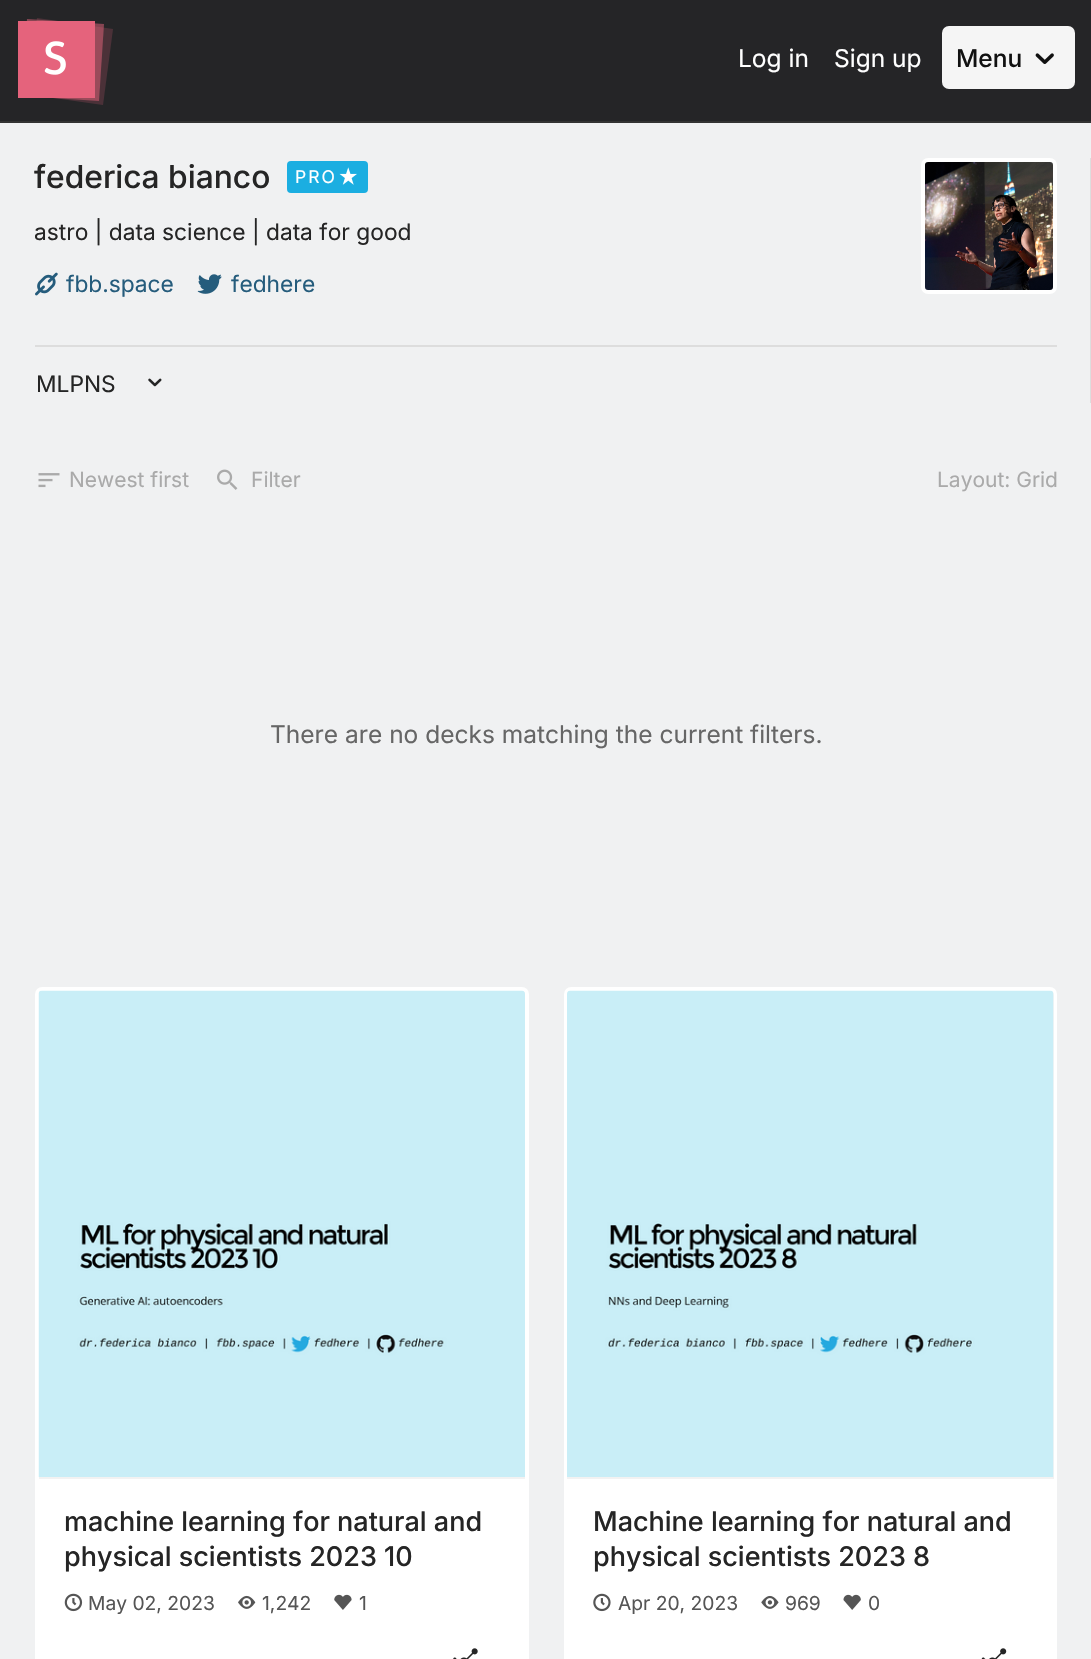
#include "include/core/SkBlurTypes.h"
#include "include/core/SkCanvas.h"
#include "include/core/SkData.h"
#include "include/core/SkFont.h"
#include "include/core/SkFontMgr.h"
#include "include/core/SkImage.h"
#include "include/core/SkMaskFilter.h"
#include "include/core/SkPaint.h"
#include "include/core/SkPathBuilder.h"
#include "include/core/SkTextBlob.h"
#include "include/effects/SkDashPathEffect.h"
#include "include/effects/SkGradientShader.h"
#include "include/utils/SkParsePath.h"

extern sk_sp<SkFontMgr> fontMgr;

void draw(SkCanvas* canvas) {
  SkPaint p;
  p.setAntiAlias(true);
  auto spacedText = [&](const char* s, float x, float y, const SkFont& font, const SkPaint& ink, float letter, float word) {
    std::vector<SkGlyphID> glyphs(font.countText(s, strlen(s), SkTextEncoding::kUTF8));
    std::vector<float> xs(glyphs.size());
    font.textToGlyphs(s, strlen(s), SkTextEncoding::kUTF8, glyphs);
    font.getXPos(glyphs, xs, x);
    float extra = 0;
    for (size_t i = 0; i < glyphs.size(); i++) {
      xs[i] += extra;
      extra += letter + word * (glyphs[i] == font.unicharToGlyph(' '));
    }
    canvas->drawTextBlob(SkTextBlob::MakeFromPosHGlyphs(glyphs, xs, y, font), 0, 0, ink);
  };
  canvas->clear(SkColorSetRGB(240, 241, 242));
  p.setColor(SkColorSetRGB(37, 37, 39));
  canvas->drawRect(SkRect::MakeLTRB(0, 0, 1091, 121), p);
  p.setColor(SkColorSetRGB(51, 51, 51));
  canvas->drawRect(SkRect::MakeLTRB(0, 121, 1091, 123), p);
  p.setColor(SkColorSetRGB(75, 49, 56));
  canvas->drawPath(SkPathBuilder().moveTo(37, 18).lineTo(113, 29).lineTo(103, 105).lineTo(26, 94).close().detach(), p);
  p.setColor(SkColorSetARGB(128, 229, 99, 124));
  canvas->drawPath(SkPathBuilder().moveTo(27, 19).lineTo(104, 24).lineTo(99, 101).lineTo(22, 96).close().detach(), p);
  p.setColor(SkColorSetRGB(229, 99, 124));
  canvas->drawRect(SkRect::MakeLTRB(18, 21, 95, 98), p);
  canvas->drawImageRect(SkImages::DeferredFromEncodedData(SkData::MakeFromFileName("images/1.png")), SkRect::MakeLTRB(44, 41, 66, 75), SkSamplingOptions());
  p.setColor(SkColorSetRGB(245, 245, 245));
  canvas->drawRoundRect(SkRect::MakeLTRB(942, 26, 1075, 89), 7, 7, p);
  canvas->drawImageRect(SkImages::DeferredFromEncodedData(SkData::MakeFromFileName("images/2.png")), SkRect::MakeLTRB(1035, 53, 1054, 64), SkSamplingOptions());
  p.setColor(SkColorSetRGB(221, 221, 221));
  canvas->drawRect(SkRect::MakeLTRB(35, 345, 1057, 347), p);
  p.setColor(SkColorSetRGB(27, 174, 225));
  canvas->drawRoundRect(SkRect::MakeLTRB(287, 161, 368, 193), 4, 4, p);
  canvas->drawImageRect(SkImages::DeferredFromEncodedData(SkData::MakeFromFileName("images/3.png")), SkRect::MakeLTRB(339, 167, 357, 185), SkSamplingOptions());
  canvas->drawImageRect(SkImages::DeferredFromEncodedData(SkData::MakeFromFileName("images/4.png")), SkRect::MakeLTRB(35, 272, 58, 296), SkSamplingOptions());
  canvas->drawImageRect(SkImages::DeferredFromEncodedData(SkData::MakeFromFileName("images/5.png")), SkRect::MakeLTRB(197, 274, 222, 294), SkSamplingOptions());
  canvas->drawImageRect(SkImages::DeferredFromEncodedData(SkData::MakeFromFileName("images/6.png")), SkRect::MakeLTRB(925, 162, 1053, 290), SkSamplingOptions());
  p.setStyle(SkPaint::kStroke_Style);
  p.setStrokeWidth(4);
  p.setColor(SK_ColorWHITE);
  canvas->drawRoundRect(SkRect::MakeLTRB(923, 160, 1055, 292), 5, 5, p);
  p.setStyle(SkPaint::kFill_Style);
  p.setColor(SkColorSetRGB(221, 221, 221));
  canvas->drawRect(SkRect::MakeLTRB(1090, 158, 1091, 403), p);
  canvas->drawImageRect(SkImages::DeferredFromEncodedData(SkData::MakeFromFileName("images/7.png")), SkRect::MakeLTRB(148, 378, 162, 387), SkSamplingOptions());
  canvas->drawImageRect(SkImages::DeferredFromEncodedData(SkData::MakeFromFileName("images/8.png")), SkRect::MakeLTRB(38, 473, 60, 488), SkSamplingOptions());
  canvas->drawImageRect(SkImages::DeferredFromEncodedData(SkData::MakeFromFileName("images/9.png")), SkRect::MakeLTRB(217, 469, 238, 490), SkSamplingOptions());
  p.setColor(SK_ColorWHITE);
  canvas->drawRoundRect(SkRect::MakeLTRB(35, 987, 529, 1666), 7, 7, p);
  p.setColor(SkColorSetRGB(242, 242, 242));
  canvas->drawRect(SkRect::MakeLTRB(39, 1477, 525, 1479), p);
  canvas->drawImageRect(SkImages::DeferredFromEncodedData(SkData::MakeFromFileName("images/10.png")), SkRect::MakeLTRB(38, 990, 525, 1477), SkSamplingOptions());
  canvas->drawImageRect(SkImages::DeferredFromEncodedData(SkData::MakeFromFileName("images/11.png")), SkRect::MakeLTRB(64, 1593, 83, 1612), SkSamplingOptions());
  canvas->drawImageRect(SkImages::DeferredFromEncodedData(SkData::MakeFromFileName("images/12.png")), SkRect::MakeLTRB(238, 1595, 256, 1609), SkSamplingOptions());
  canvas->drawImageRect(SkImages::DeferredFromEncodedData(SkData::MakeFromFileName("images/13.png")), SkRect::MakeLTRB(334, 1594, 352, 1610), SkSamplingOptions());
  canvas->drawImageRect(SkImages::DeferredFromEncodedData(SkData::MakeFromFileName("images/14.png")), SkRect::MakeLTRB(453, 1648, 478, 1659), SkSamplingOptions());
  p.setColor(SK_ColorWHITE);
  canvas->drawRoundRect(SkRect::MakeLTRB(564, 987, 1057, 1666), 7, 7, p);
  p.setColor(SkColorSetRGB(242, 242, 242));
  canvas->drawRect(SkRect::MakeLTRB(567, 1477, 1054, 1479), p);
  p.setColor(SkColorSetRGB(245, 245, 245));
  canvas->drawPath(SkPathBuilder().moveTo(571, 991).lineTo(1050, 991).cubicTo(1052, 991, 1054, 993, 1054, 995).lineTo(1054, 1477).lineTo(567, 1477).lineTo(567, 995).cubicTo(567, 993, 569, 991, 571, 991).close().detach(), p);
  canvas->drawImageRect(SkImages::DeferredFromEncodedData(SkData::MakeFromFileName("images/15.png")), SkRect::MakeLTRB(567, 990, 1054, 1477), SkSamplingOptions());
  canvas->drawImageRect(SkImages::DeferredFromEncodedData(SkData::MakeFromFileName("images/16.png")), SkRect::MakeLTRB(593, 1593, 611, 1612), SkSamplingOptions());
  canvas->drawImageRect(SkImages::DeferredFromEncodedData(SkData::MakeFromFileName("images/17.png")), SkRect::MakeLTRB(761, 1595, 779, 1609), SkSamplingOptions());
  canvas->drawImageRect(SkImages::DeferredFromEncodedData(SkData::MakeFromFileName("images/18.png")), SkRect::MakeLTRB(843, 1594, 861, 1610), SkSamplingOptions());
  canvas->drawImageRect(SkImages::DeferredFromEncodedData(SkData::MakeFromFileName("images/19.png")), SkRect::MakeLTRB(981, 1648, 1007, 1659), SkSamplingOptions());
  SkFont font1(fontMgr->matchFamilyStyle("Inter", SkFontStyle::Normal()), 24.5f);
  font1.setSubpixel(true);
  p.setColor(SK_ColorWHITE);
  canvas->drawString("Log in", 738, 67, font1, p);
  canvas->drawString("Sign up", 834, 67, font1, p);
  SkFont font2(fontMgr->matchFamilyStyle("Inter", SkFontStyle(500, SkFontStyle::kNormal_Width, SkFontStyle::kUpright_Slant)), 24.5f);
  font2.setSubpixel(true);
  p.setColor(SkColorSetRGB(17, 17, 17));
  canvas->drawString("Menu", 956, 67, font2, p);
  SkFont font3(fontMgr->matchFamilyStyle("Inter", SkFontStyle(500, SkFontStyle::kNormal_Width, SkFontStyle::kUpright_Slant)), 31.75f);
  font3.setSubpixel(true);
  p.setColor(SkColorSetRGB(37, 37, 37));
  canvas->drawString("federica bianco", 34, 188, font3, p);
  SkFont font4(fontMgr->matchFamilyStyle("Inter", SkFontStyle::Normal()), 17.5f);
  font4.setSubpixel(true);
  p.setColor(SK_ColorWHITE);
  spacedText("PRO", 295, 183, font4, p, 2, 0);
  SkFont font5(fontMgr->matchFamilyStyle("Inter", SkFontStyle::Normal()), 22.75f);
  font5.setSubpixel(true);
  p.setColor(SkColorSetRGB(37, 37, 37));
  canvas->drawString("astro | data science | data for good", 34, 240, font5, p);
  p.setColor(SkColorSetRGB(37, 92, 124));
  canvas->drawString("fbb.space", 66, 292, font5, p);
  canvas->drawString("fedhere", 231, 292, font5, p);
  p.setColor(SkColorSetRGB(37, 37, 37));
  canvas->drawString("MLPNS", 36, 392, font5, p);
  SkFont font6(fontMgr->matchFamilyStyle("Inter", SkFontStyle::Normal()), 21);
  font6.setSubpixel(true);
  p.setColor(SkColorSetRGB(170, 170, 170));
  canvas->drawString("Newest first", 69, 487, font6, p);
  canvas->drawString("Filter", 251, 487, font6, p);
  canvas->drawString("Layout: Grid", 937, 487, font6, p);
  p.setColor(SkColorSetRGB(102, 102, 102));
  canvas->drawString("There are no decks matching the current filters.", 270, 743, font1, p);
  SkFont font7(fontMgr->matchFamilyStyle("Inter", SkFontStyle(500, SkFontStyle::kNormal_Width, SkFontStyle::kUpright_Slant)), 27);
  font7.setSubpixel(true);
  p.setColor(SkColorSetRGB(37, 37, 37));
  canvas->drawString("machine learning for natural and", 64, 1531, font7, p);
  canvas->drawString("physical scientists 2023 10", 64, 1566, font7, p);
  SkFont font8(fontMgr->matchFamilyStyle("Inter", SkFontStyle::Normal()), 19.25f);
  font8.setSubpixel(true);
  p.setColor(SkColorSetRGB(85, 85, 85));
  canvas->drawString("May 02, 2023", 88, 1610, font8, p);
  canvas->drawString("1,242", 262, 1610, font8, p);
  canvas->drawString("1", 359, 1610, font8, p);
  p.setColor(SkColorSetRGB(37, 37, 37));
  canvas->drawString("Machine learning for natural and", 593, 1531, font7, p);
  canvas->drawString("physical scientists 2023 8", 593, 1566, font7, p);
  p.setColor(SkColorSetRGB(85, 85, 85));
  canvas->drawString("Apr 20, 2023", 618, 1610, font8, p);
  canvas->drawString("969", 785, 1610, font8, p);
  canvas->drawString("0", 868, 1610, font8, p);
}
